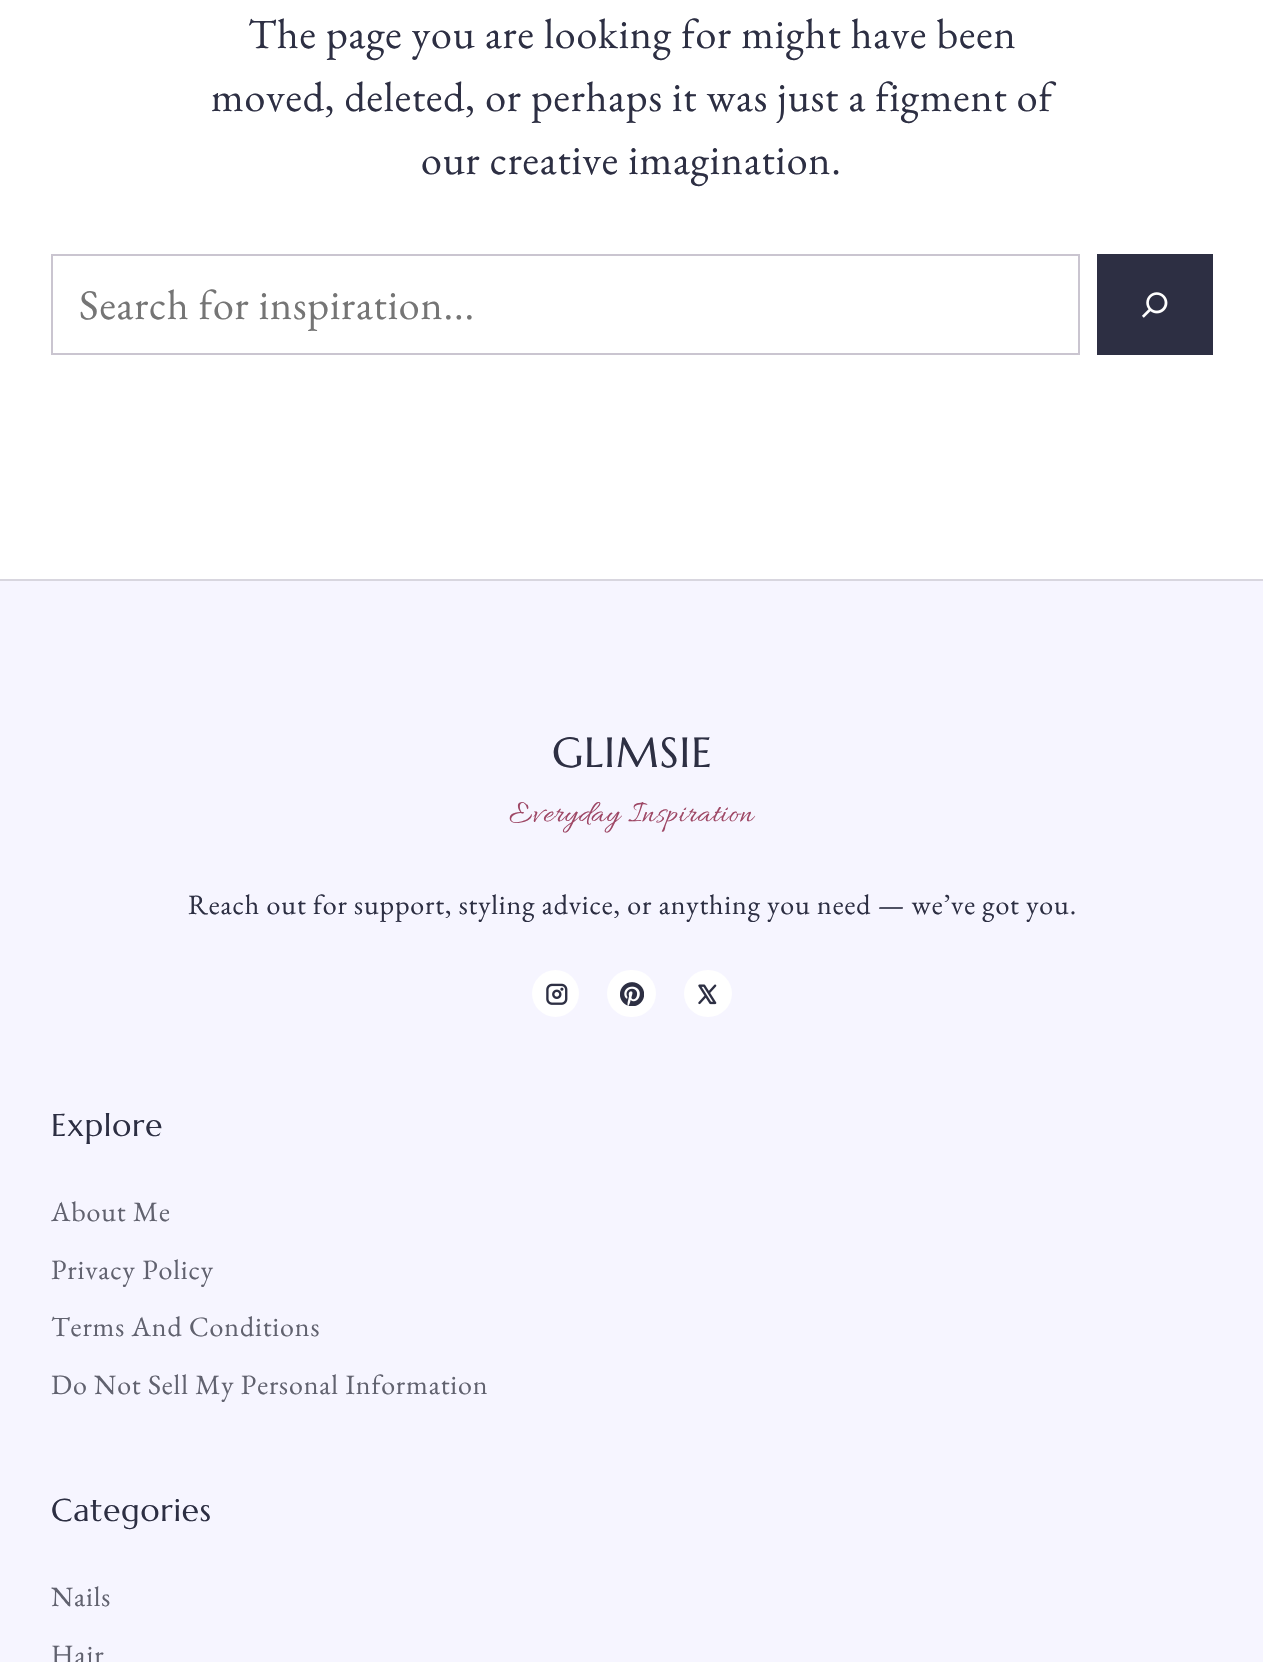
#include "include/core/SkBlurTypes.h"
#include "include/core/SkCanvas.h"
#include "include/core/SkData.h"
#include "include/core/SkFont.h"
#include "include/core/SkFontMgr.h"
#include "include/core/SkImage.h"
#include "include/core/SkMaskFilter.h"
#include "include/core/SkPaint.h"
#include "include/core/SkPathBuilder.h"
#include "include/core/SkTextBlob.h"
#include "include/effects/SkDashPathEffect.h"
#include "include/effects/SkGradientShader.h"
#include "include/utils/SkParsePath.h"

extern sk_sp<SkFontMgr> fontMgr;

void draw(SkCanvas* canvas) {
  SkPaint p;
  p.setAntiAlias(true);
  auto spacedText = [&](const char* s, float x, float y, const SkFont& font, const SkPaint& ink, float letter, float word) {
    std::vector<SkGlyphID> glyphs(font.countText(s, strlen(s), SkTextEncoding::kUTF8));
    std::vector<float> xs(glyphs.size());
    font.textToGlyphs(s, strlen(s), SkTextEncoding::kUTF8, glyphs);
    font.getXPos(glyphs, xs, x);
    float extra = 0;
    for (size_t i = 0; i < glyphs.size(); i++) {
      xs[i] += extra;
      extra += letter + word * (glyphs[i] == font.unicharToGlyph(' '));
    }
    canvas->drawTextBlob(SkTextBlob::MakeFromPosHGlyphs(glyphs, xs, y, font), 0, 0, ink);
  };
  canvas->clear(SK_ColorWHITE);
  p.setStyle(SkPaint::kStroke_Style);
  p.setStrokeWidth(2);
  p.setColor(SkColorSetRGB(202, 197, 208));
  canvas->drawRect(SkRect::MakeLTRB(52, 255, 1079, 354), p);
  p.setStyle(SkPaint::kFill_Style);
  p.setColor(SkColorSetRGB(45, 47, 67));
  canvas->drawRect(SkRect::MakeLTRB(1097, 254, 1213, 355), p);
  canvas->drawImageRect(SkImages::DeferredFromEncodedData(SkData::MakeFromFileName("images/1.png")), SkRect::MakeLTRB(1142, 292, 1168, 318), SkSamplingOptions());
  p.setColor(SkColorSetRGB(246, 245, 255));
  canvas->drawRect(SkRect::MakeLTRB(0, 581, 1263, 1662), p);
  p.setColor(SkColorSetRGB(216, 214, 223));
  canvas->drawRect(SkRect::MakeLTRB(0, 579, 1263, 581), p);
  p.setColor(SK_ColorWHITE);
  canvas->drawCircle(555.5f, 993.5f, 23.5f, p);
  canvas->drawImageRect(SkImages::DeferredFromEncodedData(SkData::MakeFromFileName("images/2.png")), SkRect::MakeLTRB(546, 983, 568, 1005), SkSamplingOptions());
  canvas->drawRoundRect(SkRect::MakeLTRB(607, 970, 656, 1017), 23.5f, 23.5f, p);
  canvas->drawImageRect(SkImages::DeferredFromEncodedData(SkData::MakeFromFileName("images/3.png")), SkRect::MakeLTRB(620, 982, 644, 1006), SkSamplingOptions());
  canvas->drawRoundRect(SkRect::MakeLTRB(684, 970, 732, 1017), 23.5f, 23.5f, p);
  canvas->drawImageRect(SkImages::DeferredFromEncodedData(SkData::MakeFromFileName("images/4.png")), SkRect::MakeLTRB(698, 984, 717, 1005), SkSamplingOptions());
  SkFont font1(fontMgr->matchFamilyStyle("EB Garamond", SkFontStyle::Normal()), 42);
  font1.setSubpixel(true);
  p.setColor(SkColorSetRGB(45, 47, 67));
  spacedText("The page you are looking for might have been", 248, 48, font1, p, 0.85f, 0);
  spacedText("moved, deleted, or perhaps it was just a figment of", 211, 111, font1, p, 0.85f, 0);
  spacedText("our creative imagination.", 421, 174, font1, p, 0.85f, 0);
  p.setColor(SkColorSetRGB(117, 117, 117));
  spacedText("Search for inspiration...", 79, 319, font1, p, 0.85f, 0);
  SkFont font2(fontMgr->matchFamilyStyle("Marcellus", SkFontStyle::Normal()), 42);
  font2.setSubpixel(true);
  p.setColor(SkColorSetRGB(45, 47, 67));
  spacedText("GLIMSIE", 552, 767, font2, p, 0.75f, 0);
  SkFont font3(fontMgr->matchFamilyStyle("Allura", SkFontStyle::Normal()), 31.5f);
  font3.setSubpixel(true);
  p.setColor(SkColorSetRGB(158, 71, 101));
  spacedText("Everyday Inspiration", 509, 821, font3, p, 0.85f, 0);
  SkFont font4(fontMgr->matchFamilyStyle("EB Garamond", SkFontStyle::Normal()), 28);
  font4.setSubpixel(true);
  p.setColor(SkColorSetRGB(45, 47, 67));
  spacedText("Reach out for support, styling advice, or anything you need — we’ve got you.", 188, 914, font4, p, 0.85f, 0);
  SkFont font5(fontMgr->matchFamilyStyle("Marcellus", SkFontStyle::Normal()), 31.5f);
  font5.setSubpixel(true);
  spacedText("Explore", 51, 1136, font5, p, 0.85f, 0);
  p.setColor(SkColorSetRGB(97, 98, 111));
  spacedText("About Me", 51, 1221, font4, p, 0.85f, 0);
  spacedText("Privacy Policy", 51, 1279, font4, p, 0.85f, 0);
  spacedText("Terms And Conditions", 51, 1336, font4, p, 0.85f, 0);
  spacedText("Do Not Sell My Personal Information", 51, 1394, font4, p, 0.85f, 0);
  p.setColor(SkColorSetRGB(45, 47, 67));
  spacedText("Categories", 51, 1521, font5, p, 0.85f, 0);
  p.setColor(SkColorSetRGB(97, 98, 111));
  spacedText("Nails", 51, 1606, font4, p, 0.85f, 0);
  spacedText("Hair", 51, 1664, font4, p, 0.85f, 0);
}
